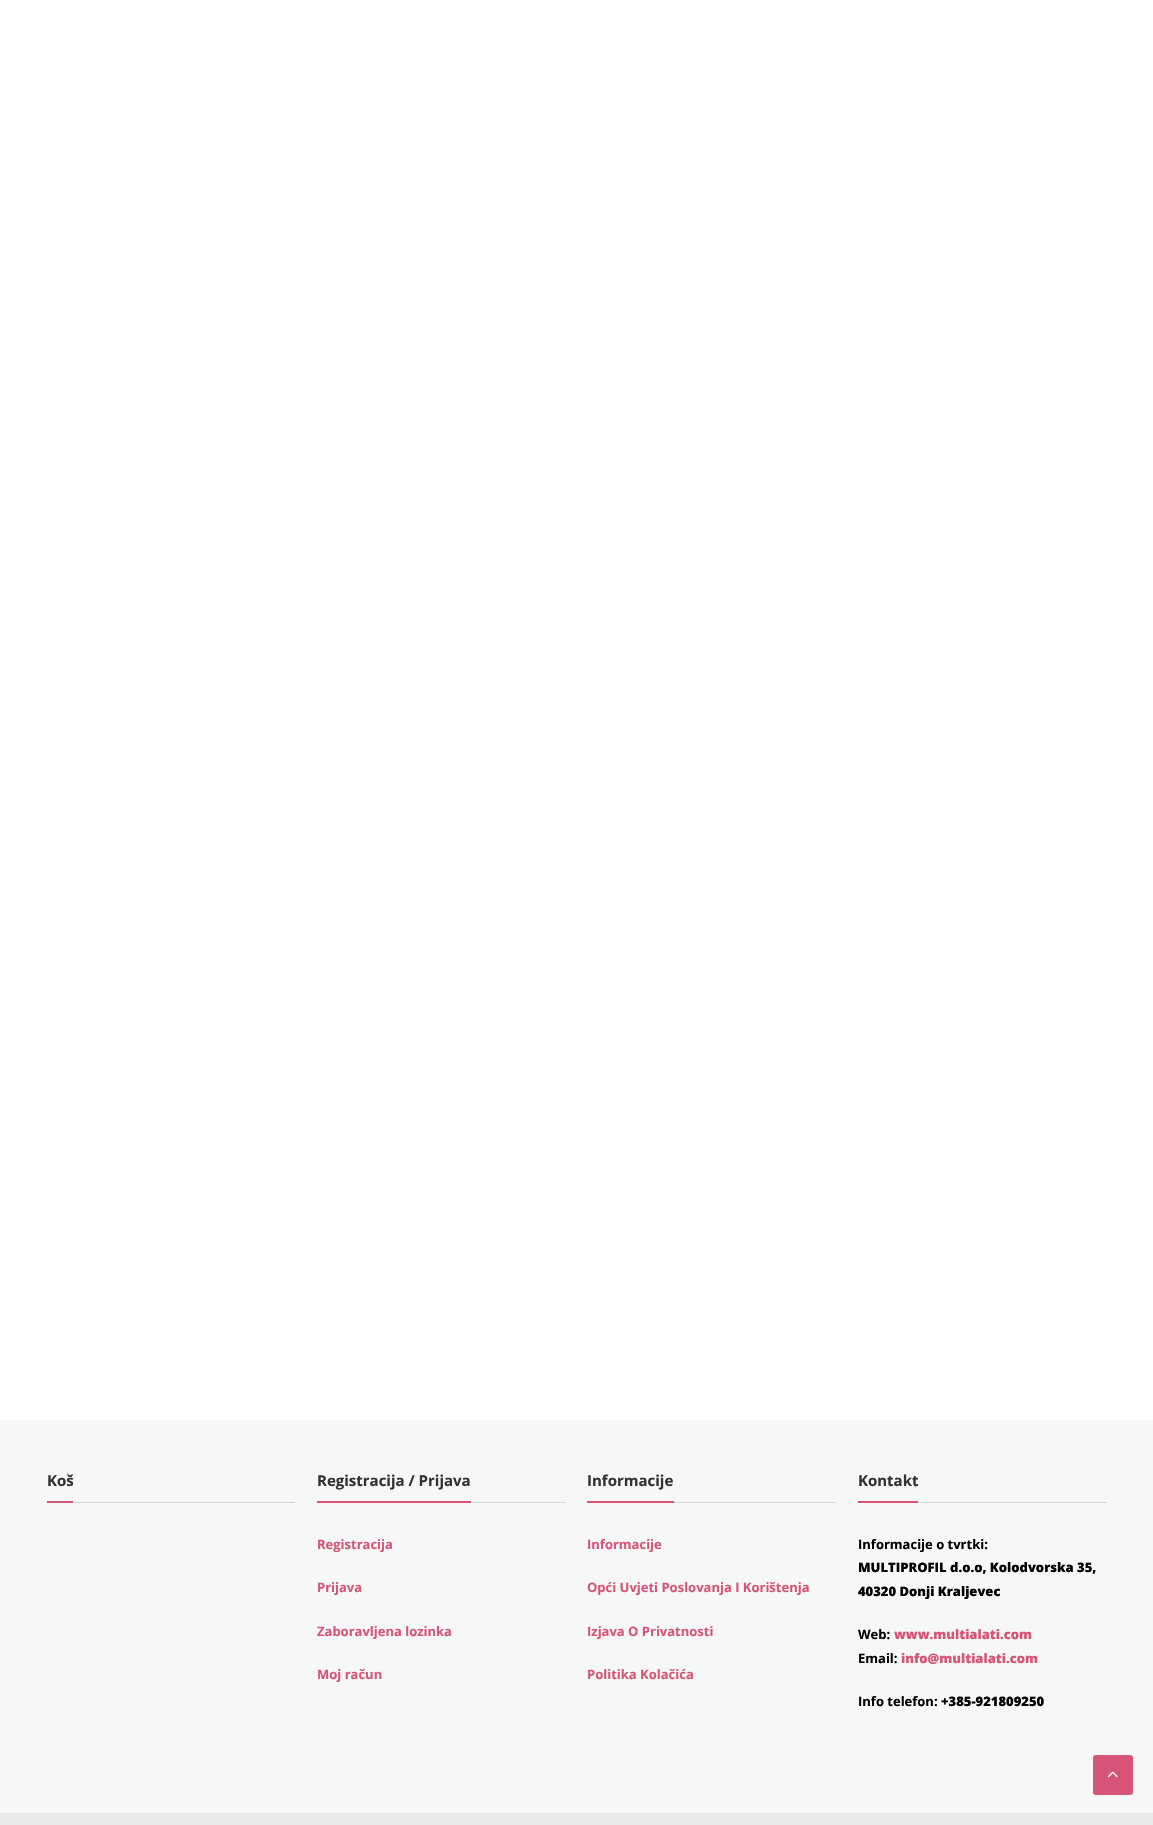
#include "include/core/SkBlurTypes.h"
#include "include/core/SkCanvas.h"
#include "include/core/SkData.h"
#include "include/core/SkFont.h"
#include "include/core/SkFontMgr.h"
#include "include/core/SkImage.h"
#include "include/core/SkMaskFilter.h"
#include "include/core/SkPaint.h"
#include "include/core/SkPathBuilder.h"
#include "include/core/SkTextBlob.h"
#include "include/effects/SkDashPathEffect.h"
#include "include/effects/SkGradientShader.h"
#include "include/utils/SkParsePath.h"

extern sk_sp<SkFontMgr> fontMgr;

void draw(SkCanvas* canvas) {
  SkPaint p;
  p.setAntiAlias(true);
  canvas->clear(SK_ColorWHITE);
  p.setColor(SkColorSetRGB(246, 247, 247));
  canvas->drawRect(SkRect::MakeLTRB(0, 1420, 1153, 1813), p);
  p.setColor(SkColorSetRGB(214, 214, 214));
  canvas->drawRect(SkRect::MakeLTRB(73, 1502, 295, 1503), p);
  p.setColor(SkColorSetRGB(214, 85, 119));
  canvas->drawRect(SkRect::MakeLTRB(47, 1501, 73, 1503), p);
  p.setColor(SkColorSetRGB(214, 214, 214));
  canvas->drawRect(SkRect::MakeLTRB(471, 1502, 566, 1503), p);
  p.setColor(SkColorSetRGB(214, 85, 119));
  canvas->drawRect(SkRect::MakeLTRB(317, 1501, 471, 1503), p);
  p.setColor(SkColorSetRGB(214, 214, 214));
  canvas->drawRect(SkRect::MakeLTRB(674, 1502, 836, 1503), p);
  p.setColor(SkColorSetRGB(214, 85, 119));
  canvas->drawRect(SkRect::MakeLTRB(587, 1501, 674, 1503), p);
  p.setColor(SkColorSetRGB(214, 214, 214));
  canvas->drawRect(SkRect::MakeLTRB(918, 1502, 1107, 1503), p);
  p.setColor(SkColorSetRGB(214, 85, 119));
  canvas->drawRect(SkRect::MakeLTRB(858, 1501, 918, 1503), p);
  p.setColor(SkColorSetRGB(233, 235, 235));
  canvas->drawRect(SkRect::MakeLTRB(0, 1813, 1153, 1825), p);
  p.setColor(SkColorSetRGB(214, 85, 119));
  canvas->drawRoundRect(SkRect::MakeLTRB(1093, 1755, 1133, 1795), 3, 3, p);
  canvas->drawImageRect(SkImages::DeferredFromEncodedData(SkData::MakeFromFileName("images/1.png")), SkRect::MakeLTRB(1107, 1771, 1118, 1778), SkSamplingOptions());
  SkFont font1(fontMgr->matchFamilyStyle("Open Sans", SkFontStyle::Bold()), 15);
  font1.setSubpixel(true);
  p.setColor(SkColorSetRGB(51, 51, 51));
  canvas->drawString("Koš", 47, 1486, font1, p);
  canvas->drawString("Registracija / Prijava", 317, 1486, font1, p);
  SkFont font2(fontMgr->matchFamilyStyle("Open Sans", SkFontStyle::Bold()), 13);
  font2.setSubpixel(true);
  p.setColor(SkColorSetRGB(214, 85, 119));
  canvas->drawString("Registracija", 317, 1549, font2, p);
  canvas->drawString("Prijava", 317, 1592, font2, p);
  canvas->drawString("Zaboravljena lozinka", 317, 1636, font2, p);
  canvas->drawString("Moj račun", 317, 1679, font2, p);
  p.setColor(SkColorSetRGB(51, 51, 51));
  canvas->drawString("Informacije", 587, 1486, font1, p);
  p.setColor(SkColorSetRGB(214, 85, 119));
  canvas->drawString("Informacije", 587, 1549, font2, p);
  canvas->drawString("Opći Uvjeti Poslovanja I Korištenja", 587, 1592, font2, p);
  canvas->drawString("Izjava O Privatnosti", 587, 1636, font2, p);
  canvas->drawString("Politika Kolačića", 587, 1679, font2, p);
  p.setColor(SkColorSetRGB(51, 51, 51));
  canvas->drawString("Kontakt", 858, 1486, font1, p);
  p.setColor(SK_ColorBLACK);
  canvas->drawString("Informacije o tvrtki:", 858, 1549, font2, p);
  SkFont font3(fontMgr->matchFamilyStyle("Open Sans", SkFontStyle(800, SkFontStyle::kNormal_Width, SkFontStyle::kUpright_Slant)), 13);
  font3.setSubpixel(true);
  canvas->drawString("MULTIPROFIL d.o.o, Kolodvorska 35,", 858, 1572, font3, p);
  canvas->drawString("40320 Donji Kraljevec", 858, 1596, font3, p);
  canvas->drawString("Web:", 858, 1639, font2, p);
  p.setColor(SkColorSetRGB(214, 85, 119));
  canvas->drawString("www.multialati.com", 894, 1639, font3, p);
  p.setColor(SK_ColorBLACK);
  canvas->drawString("Email:", 858, 1663, font2, p);
  p.setColor(SkColorSetRGB(214, 85, 119));
  canvas->drawString("info@multialati.com", 901, 1663, font3, p);
  p.setColor(SK_ColorBLACK);
  canvas->drawString("Info telefon:", 858, 1706, font2, p);
  canvas->drawString("+385-921809250", 941, 1706, font3, p);
}
